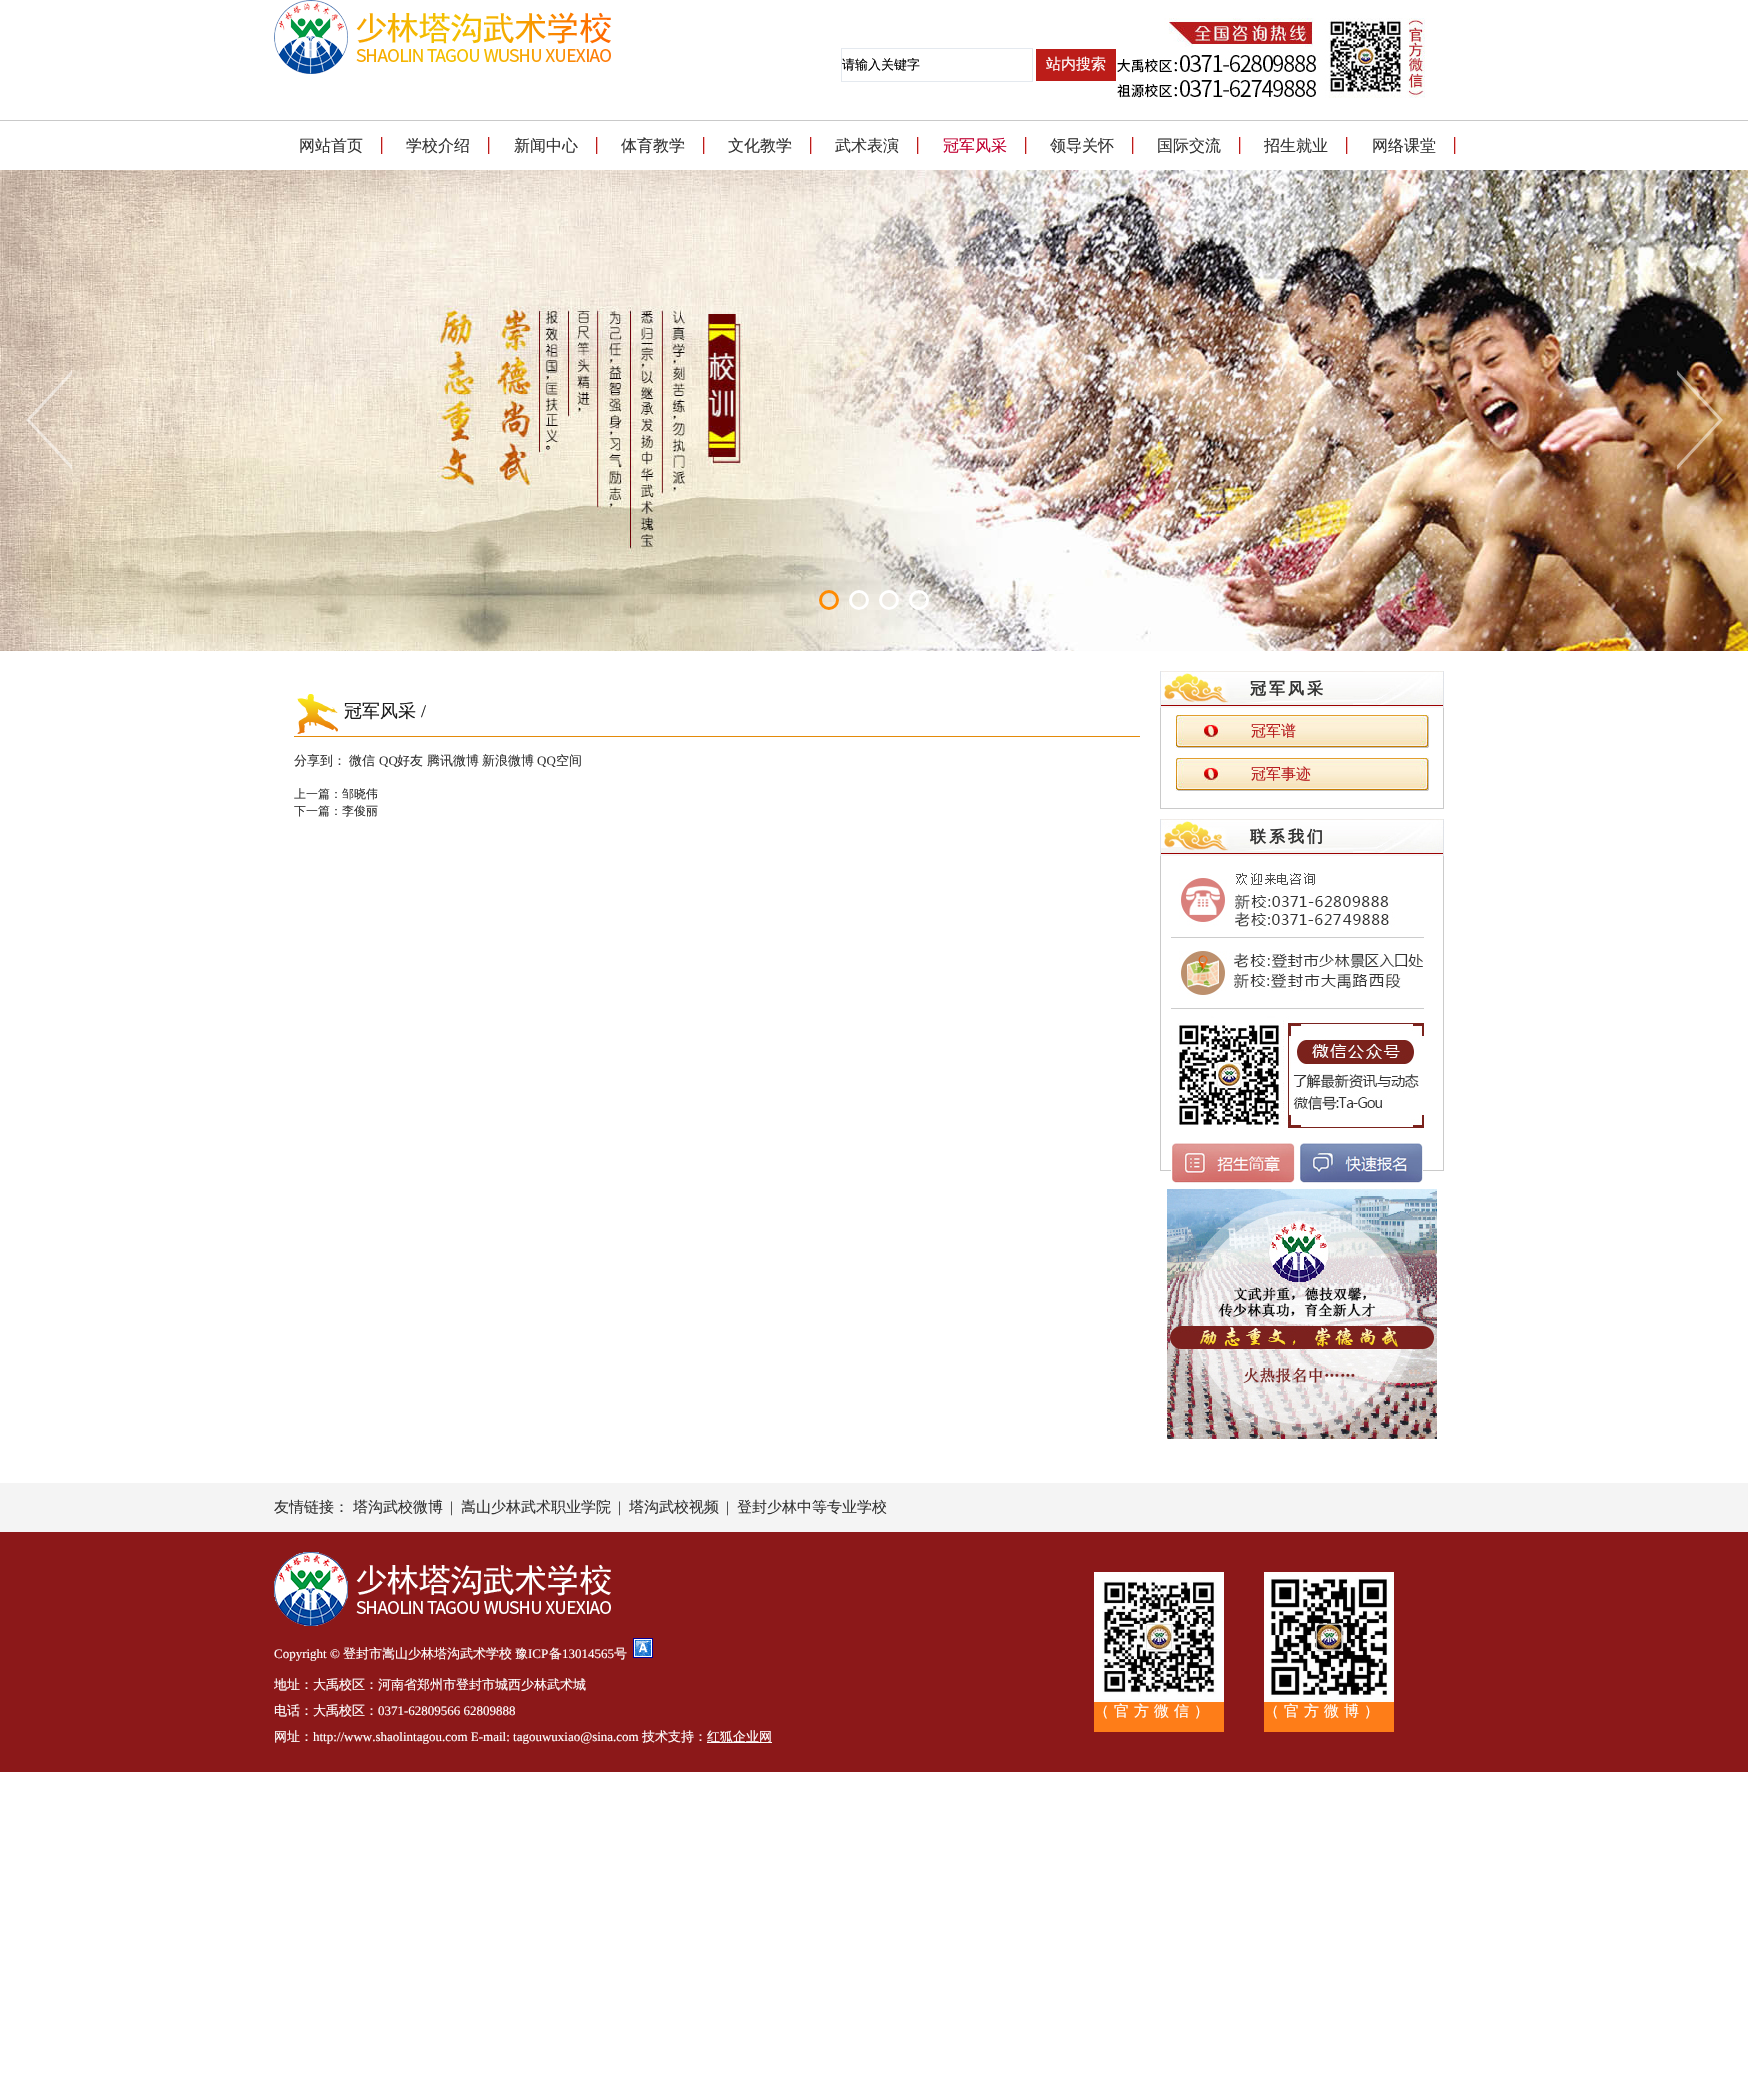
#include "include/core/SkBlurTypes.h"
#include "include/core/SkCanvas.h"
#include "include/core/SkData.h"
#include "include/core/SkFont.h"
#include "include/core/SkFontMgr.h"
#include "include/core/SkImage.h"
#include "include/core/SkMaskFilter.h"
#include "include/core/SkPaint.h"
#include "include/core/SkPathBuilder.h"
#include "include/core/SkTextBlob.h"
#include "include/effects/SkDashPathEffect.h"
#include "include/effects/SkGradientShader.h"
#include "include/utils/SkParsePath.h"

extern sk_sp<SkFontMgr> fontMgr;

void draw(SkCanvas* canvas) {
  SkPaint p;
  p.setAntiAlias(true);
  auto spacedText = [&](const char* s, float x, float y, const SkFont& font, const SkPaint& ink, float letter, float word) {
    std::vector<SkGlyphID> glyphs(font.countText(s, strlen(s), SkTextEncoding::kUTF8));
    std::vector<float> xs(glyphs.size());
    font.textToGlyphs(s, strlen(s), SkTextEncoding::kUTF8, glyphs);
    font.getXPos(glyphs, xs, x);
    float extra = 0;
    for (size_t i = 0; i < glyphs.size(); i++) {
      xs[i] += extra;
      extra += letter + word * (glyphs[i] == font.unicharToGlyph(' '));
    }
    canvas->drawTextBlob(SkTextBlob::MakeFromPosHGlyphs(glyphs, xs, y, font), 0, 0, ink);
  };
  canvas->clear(SK_ColorWHITE);
  canvas->drawImageRect(SkImages::DeferredFromEncodedData(SkData::MakeFromFileName("images/1.png")), SkRect::MakeLTRB(274, 0, 611, 74), SkSamplingOptions());
  p.setStyle(SkPaint::kStroke_Style);
  p.setStrokeWidth(1);
  p.setColor(SkColorSetRGB(228, 233, 239));
  canvas->drawRect(SkRect::MakeLTRB(841.5f, 48.5f, 1032.5f, 81.5f), p);
  p.setStyle(SkPaint::kFill_Style);
  p.setColor(SkColorSetRGB(188, 29, 25));
  canvas->drawRect(SkRect::MakeLTRB(1036, 49, 1116, 81), p);
  canvas->drawImageRect(SkImages::DeferredFromEncodedData(SkData::MakeFromFileName("images/2.png")), SkRect::MakeLTRB(1117, 18, 1427, 98), SkSamplingOptions());
  p.setColor(SkColorSetRGB(201, 201, 201));
  canvas->drawRect(SkRect::MakeLTRB(0, 120, 1748, 121), p);
  canvas->drawImageRect(SkImages::DeferredFromEncodedData(SkData::MakeFromFileName("images/3.png")), SkRect::MakeLTRB(381, 137, 383, 154), SkSamplingOptions());
  canvas->drawImageRect(SkImages::DeferredFromEncodedData(SkData::MakeFromFileName("images/3.png")), SkRect::MakeLTRB(488, 137, 490, 154), SkSamplingOptions());
  canvas->drawImageRect(SkImages::DeferredFromEncodedData(SkData::MakeFromFileName("images/3.png")), SkRect::MakeLTRB(596, 137, 598, 154), SkSamplingOptions());
  canvas->drawImageRect(SkImages::DeferredFromEncodedData(SkData::MakeFromFileName("images/3.png")), SkRect::MakeLTRB(703, 137, 705, 154), SkSamplingOptions());
  canvas->drawImageRect(SkImages::DeferredFromEncodedData(SkData::MakeFromFileName("images/3.png")), SkRect::MakeLTRB(810, 137, 812, 154), SkSamplingOptions());
  canvas->drawImageRect(SkImages::DeferredFromEncodedData(SkData::MakeFromFileName("images/3.png")), SkRect::MakeLTRB(917, 137, 919, 154), SkSamplingOptions());
  canvas->drawImageRect(SkImages::DeferredFromEncodedData(SkData::MakeFromFileName("images/3.png")), SkRect::MakeLTRB(1025, 137, 1027, 154), SkSamplingOptions());
  canvas->drawImageRect(SkImages::DeferredFromEncodedData(SkData::MakeFromFileName("images/3.png")), SkRect::MakeLTRB(1132, 137, 1134, 154), SkSamplingOptions());
  canvas->drawImageRect(SkImages::DeferredFromEncodedData(SkData::MakeFromFileName("images/3.png")), SkRect::MakeLTRB(1239, 137, 1241, 154), SkSamplingOptions());
  canvas->drawImageRect(SkImages::DeferredFromEncodedData(SkData::MakeFromFileName("images/3.png")), SkRect::MakeLTRB(1346, 137, 1348, 154), SkSamplingOptions());
  canvas->drawImageRect(SkImages::DeferredFromEncodedData(SkData::MakeFromFileName("images/3.png")), SkRect::MakeLTRB(1454, 137, 1456, 154), SkSamplingOptions());
  canvas->drawImageRect(SkImages::DeferredFromEncodedData(SkData::MakeFromFileName("images/4.png")), SkRect::MakeLTRB(0, 170, 1748, 651), SkSamplingOptions());
  canvas->drawImageRect(SkImages::DeferredFromEncodedData(SkData::MakeFromFileName("images/5.png")), SkRect::MakeLTRB(26, 370, 72, 470), SkSamplingOptions());
  canvas->drawImageRect(SkImages::DeferredFromEncodedData(SkData::MakeFromFileName("images/6.png")), SkRect::MakeLTRB(1677, 370, 1723, 470), SkSamplingOptions());
  p.setStyle(SkPaint::kStroke_Style);
  p.setStrokeWidth(3);
  p.setColor(SkColorSetRGB(255, 138, 0));
  canvas->drawCircle(829, 600, 8.5f, p);
  p.setColor(SK_ColorWHITE);
  canvas->drawCircle(859, 600, 8.5f, p);
  canvas->drawCircle(889, 600, 8.5f, p);
  canvas->drawCircle(919, 600, 8.5f, p);
  p.setStyle(SkPaint::kFill_Style);
  p.setColor(SkColorSetRGB(228, 138, 9));
  canvas->drawRect(SkRect::MakeLTRB(294, 736, 1140, 737), p);
  canvas->drawImageRect(SkImages::DeferredFromEncodedData(SkData::MakeFromFileName("images/7.png")), SkRect::MakeLTRB(297, 694, 338, 734), SkSamplingOptions());
  canvas->drawImageRect(SkImages::DeferredFromEncodedData(SkData::MakeFromFileName("images/8.png")), SkRect::MakeLTRB(1160, 671, 1444, 708), SkSamplingOptions());
  p.setColor(SkColorSetRGB(202, 202, 202));
  canvas->drawRect(SkRect::MakeLTRB(1443, 708, 1444, 809), p);
  canvas->drawRect(SkRect::MakeLTRB(1160, 808, 1444, 809), p);
  canvas->drawRect(SkRect::MakeLTRB(1160, 708, 1161, 809), p);
  canvas->drawImageRect(SkImages::DeferredFromEncodedData(SkData::MakeFromFileName("images/9.png")), SkRect::MakeLTRB(1176, 715, 1429, 748), SkSamplingOptions());
  canvas->drawImageRect(SkImages::DeferredFromEncodedData(SkData::MakeFromFileName("images/9.png")), SkRect::MakeLTRB(1176, 758, 1429, 791), SkSamplingOptions());
  canvas->drawImageRect(SkImages::DeferredFromEncodedData(SkData::MakeFromFileName("images/8.png")), SkRect::MakeLTRB(1160, 819, 1444, 856), SkSamplingOptions());
  canvas->drawRect(SkRect::MakeLTRB(1443, 856, 1444, 1171), p);
  canvas->drawRect(SkRect::MakeLTRB(1160, 1170, 1444, 1171), p);
  canvas->drawRect(SkRect::MakeLTRB(1160, 856, 1161, 1171), p);
  canvas->drawImageRect(SkImages::DeferredFromEncodedData(SkData::MakeFromFileName("images/10.png")), SkRect::MakeLTRB(1171, 873, 1424, 1128), SkSamplingOptions());
  canvas->drawImageRect(SkImages::DeferredFromEncodedData(SkData::MakeFromFileName("images/11.png")), SkRect::MakeLTRB(1171, 1143, 1297, 1183), SkSamplingOptions());
  canvas->drawImageRect(SkImages::DeferredFromEncodedData(SkData::MakeFromFileName("images/12.png")), SkRect::MakeLTRB(1297, 1143, 1423, 1183), SkSamplingOptions());
  canvas->drawImageRect(SkImages::DeferredFromEncodedData(SkData::MakeFromFileName("images/13.png")), SkRect::MakeLTRB(1167, 1189, 1437, 1439), SkSamplingOptions());
  p.setColor(SkColorSetRGB(244, 244, 244));
  canvas->drawRect(SkRect::MakeLTRB(0, 1483, 1748, 1532), p);
  p.setColor(SkColorSetRGB(140, 24, 25));
  canvas->drawRect(SkRect::MakeLTRB(0, 1532, 1748, 1772), p);
  canvas->drawImageRect(SkImages::DeferredFromEncodedData(SkData::MakeFromFileName("images/14.png")), SkRect::MakeLTRB(274, 1552, 611, 1626), SkSamplingOptions());
  canvas->drawImageRect(SkImages::DeferredFromEncodedData(SkData::MakeFromFileName("images/15.png")), SkRect::MakeLTRB(633, 1638, 653, 1658), SkSamplingOptions());
  p.setColor(SK_ColorWHITE);
  canvas->drawRect(SkRect::MakeLTRB(707, 1742, 772, 1743), p);
  p.setColor(SkColorSetRGB(254, 125, 24));
  canvas->drawRect(SkRect::MakeLTRB(1094, 1702, 1224, 1732), p);
  canvas->drawImageRect(SkImages::DeferredFromEncodedData(SkData::MakeFromFileName("images/16.png")), SkRect::MakeLTRB(1094, 1572, 1224, 1702), SkSamplingOptions());
  canvas->drawRect(SkRect::MakeLTRB(1264, 1702, 1394, 1732), p);
  canvas->drawImageRect(SkImages::DeferredFromEncodedData(SkData::MakeFromFileName("images/17.png")), SkRect::MakeLTRB(1264, 1572, 1394, 1702), SkSamplingOptions());
  SkFont font1(fontMgr->matchFamilyStyle("WenQuanYi Zen Hei", SkFontStyle(500, SkFontStyle::kNormal_Width, SkFontStyle::kUpright_Slant)), 13);
  font1.setSubpixel(true);
  p.setColor(SK_ColorBLACK);
  canvas->drawString("请输入关键字", 842, 69, font1, p);
  SkFont font2(fontMgr->matchFamilyStyle("WenQuanYi Zen Hei", SkFontStyle(500, SkFontStyle::kNormal_Width, SkFontStyle::kUpright_Slant)), 15);
  font2.setSubpixel(true);
  p.setColor(SK_ColorWHITE);
  canvas->drawString("站内搜索", 1046, 69, font2, p);
  SkFont font3(fontMgr->matchFamilyStyle("WenQuanYi Zen Hei", SkFontStyle(500, SkFontStyle::kNormal_Width, SkFontStyle::kUpright_Slant)), 16);
  font3.setSubpixel(true);
  p.setColor(SkColorSetRGB(51, 51, 51));
  canvas->drawString("网站首页", 299, 151, font3, p);
  canvas->drawString("学校介绍", 406, 151, font3, p);
  canvas->drawString("新闻中心", 514, 151, font3, p);
  canvas->drawString("体育教学", 621, 151, font3, p);
  canvas->drawString("文化教学", 728, 151, font3, p);
  canvas->drawString("武术表演", 835, 151, font3, p);
  p.setColor(SkColorSetRGB(193, 0, 49));
  canvas->drawString("冠军风采", 943, 151, font3, p);
  p.setColor(SkColorSetRGB(51, 51, 51));
  canvas->drawString("领导关怀", 1050, 151, font3, p);
  canvas->drawString("国际交流", 1157, 151, font3, p);
  canvas->drawString("招生就业", 1264, 151, font3, p);
  canvas->drawString("网络课堂", 1372, 151, font3, p);
  SkFont font4(fontMgr->matchFamilyStyle("WenQuanYi Zen Hei", SkFontStyle(500, SkFontStyle::kNormal_Width, SkFontStyle::kUpright_Slant)), 18);
  font4.setSubpixel(true);
  p.setColor(SkColorSetRGB(28, 28, 28));
  canvas->drawString("冠军风采", 344, 717, font4, p);
  SkFont font5(fontMgr->matchFamilyStyle("Liberation Serif", SkFontStyle::Normal()), 18);
  font5.setSubpixel(true);
  canvas->drawString("/", 421, 717, font5, p);
  p.setColor(SkColorSetRGB(51, 51, 51));
  canvas->drawString("分享到：", 294, 765, font1, p);
  canvas->drawString("微信", 349, 765, font1, p);
  SkFont font6(fontMgr->matchFamilyStyle("Liberation Serif", SkFontStyle::Normal()), 13);
  font6.setSubpixel(true);
  canvas->drawString("QQ", 379, 765, font6, p);
  canvas->drawString("好友", 397, 765, font1, p);
  canvas->drawString("腾讯微博", 427, 765, font1, p);
  canvas->drawString("新浪微博", 482, 765, font1, p);
  canvas->drawString("QQ", 537, 765, font6, p);
  canvas->drawString("空间", 556, 765, font1, p);
  SkFont font7(fontMgr->matchFamilyStyle("WenQuanYi Zen Hei", SkFontStyle(500, SkFontStyle::kNormal_Width, SkFontStyle::kUpright_Slant)), 12);
  font7.setSubpixel(true);
  canvas->drawString("上一篇：邹晓伟", 294, 798, font7, p);
  canvas->drawString("下一篇：李俊丽", 294, 815, font7, p);
  SkFont font8(fontMgr->matchFamilyStyle("WenQuanYi Zen Hei", SkFontStyle::Bold()), 16);
  font8.setSubpixel(true);
  spacedText("冠军风采", 1250, 694, font8, p, 3, 0);
  p.setColor(SkColorSetRGB(183, 29, 31));
  canvas->drawString("冠军谱", 1251, 736, font2, p);
  canvas->drawString("冠军事迹", 1251, 779, font2, p);
  p.setColor(SkColorSetRGB(51, 51, 51));
  spacedText("联系我们", 1250, 842, font8, p, 3, 0);
  canvas->drawString("友情链接：", 274, 1512, font2, p);
  canvas->drawString("塔沟武校微博", 353, 1512, font2, p);
  SkFont font9(fontMgr->matchFamilyStyle("Liberation Serif", SkFontStyle::Normal()), 15);
  font9.setSubpixel(true);
  canvas->drawString("|", 450, 1512, font9, p);
  canvas->drawString("嵩山少林武术职业学院", 461, 1512, font2, p);
  canvas->drawString("|", 618, 1512, font9, p);
  canvas->drawString("塔沟武校视频", 629, 1512, font2, p);
  canvas->drawString("|", 726, 1512, font9, p);
  canvas->drawString("登封少林中等专业学校", 737, 1512, font2, p);
  p.setColor(SK_ColorWHITE);
  canvas->drawString("Copyright ©", 274, 1658, font6, p);
  canvas->drawString("登封市嵩山少林塔沟武术学校", 343, 1658, font1, p);
  canvas->drawString("豫", 515, 1658, font1, p);
  canvas->drawString("ICP", 528, 1658, font6, p);
  canvas->drawString("备", 549, 1658, font1, p);
  canvas->drawString("13014565", 562, 1658, font6, p);
  canvas->drawString("号", 614, 1658, font1, p);
  canvas->drawString("地址：大禹校区：河南省郑州市登封市城西少林武术城", 274, 1689, font1, p);
  canvas->drawString("电话：大禹校区：", 274, 1715, font1, p);
  canvas->drawString("0371-62809566 62809888", 378, 1715, font6, p);
  canvas->drawString("网址：", 274, 1741, font1, p);
  canvas->drawString("http://www.shaolintagou.com E-mail: tagouwuxiao@sina.com", 313, 1741, font6, p);
  canvas->drawString("技术支持：", 642, 1741, font1, p);
  canvas->drawString("红狐企业网", 707, 1741, font1, p);
  spacedText("（官方微信）", 1094, 1716, font2, p, 5, 0);
  spacedText("（官方微博）", 1264, 1716, font2, p, 5, 0);
}
